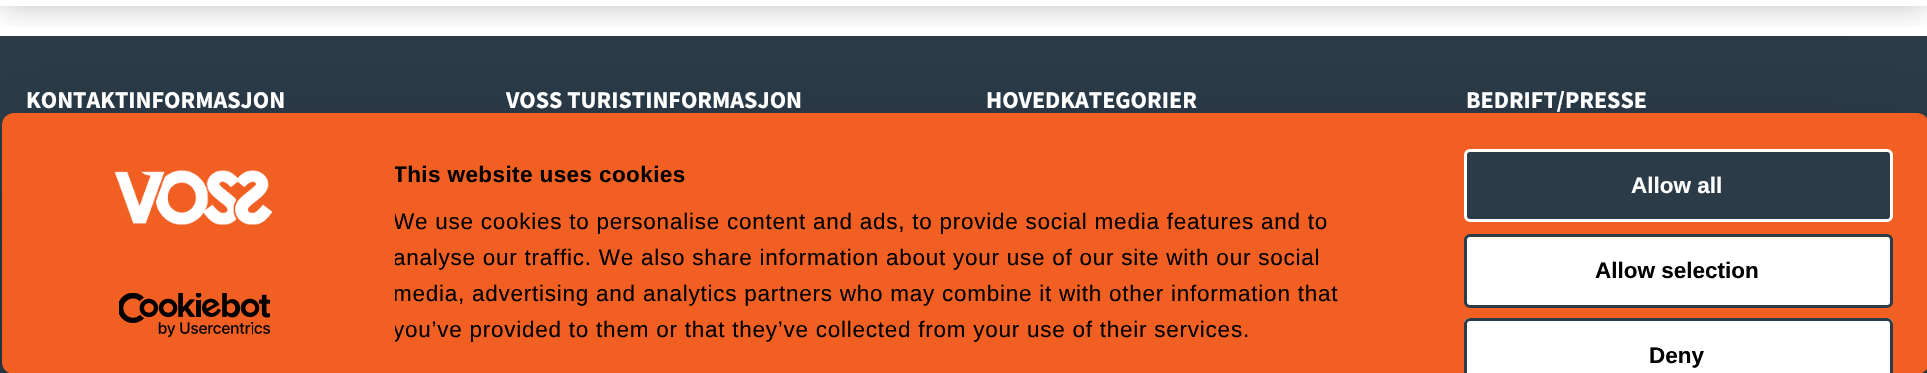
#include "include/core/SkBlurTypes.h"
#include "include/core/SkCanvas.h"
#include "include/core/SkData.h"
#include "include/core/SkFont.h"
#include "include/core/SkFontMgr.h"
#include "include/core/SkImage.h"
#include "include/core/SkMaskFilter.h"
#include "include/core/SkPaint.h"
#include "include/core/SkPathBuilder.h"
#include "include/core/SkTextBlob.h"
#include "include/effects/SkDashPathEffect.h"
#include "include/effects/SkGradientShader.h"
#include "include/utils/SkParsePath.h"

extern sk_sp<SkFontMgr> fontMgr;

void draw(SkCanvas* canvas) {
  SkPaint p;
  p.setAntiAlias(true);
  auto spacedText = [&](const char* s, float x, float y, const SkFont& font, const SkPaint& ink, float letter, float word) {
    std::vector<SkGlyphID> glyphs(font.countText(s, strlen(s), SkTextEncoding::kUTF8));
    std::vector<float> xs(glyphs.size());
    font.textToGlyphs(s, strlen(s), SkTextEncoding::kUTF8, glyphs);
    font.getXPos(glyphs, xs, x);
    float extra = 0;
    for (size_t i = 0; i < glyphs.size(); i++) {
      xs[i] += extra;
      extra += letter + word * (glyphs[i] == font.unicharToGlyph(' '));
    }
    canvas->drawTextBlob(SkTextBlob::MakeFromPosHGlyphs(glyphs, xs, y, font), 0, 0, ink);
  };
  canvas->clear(SK_ColorWHITE);
  p.setColor(SkColorSetRGB(43, 59, 72));
  canvas->drawRect(SkRect::MakeLTRB(0, 36, 1927, 373), p);
  canvas->save();
  canvas->clipRect(SkRect::MakeLTRB(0, 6, 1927, 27));
  p.setColor(SkColorSetARGB(64, 0, 0, 0));
  p.setMaskFilter(SkMaskFilter::MakeBlur(kNormal_SkBlurStyle, 15));
  canvas->drawRect(SkRect::MakeLTRB(0, -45, 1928, 6), p);
  p.setMaskFilter(nullptr);
  canvas->restore();
  canvas->save();
  canvas->clipPath(SkPathBuilder(SkPathFillType::kEvenOdd).moveTo(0, 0).lineTo(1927, 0).lineTo(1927, 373).lineTo(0, 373).close().moveTo(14, 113).lineTo(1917, 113).cubicTo(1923.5f, 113, 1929, 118.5f, 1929, 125).lineTo(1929, 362).cubicTo(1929, 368.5f, 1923.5f, 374, 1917, 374).lineTo(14, 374).cubicTo(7.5f, 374, 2, 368.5f, 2, 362).lineTo(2, 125).cubicTo(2, 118.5f, 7.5f, 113, 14, 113).close().detach(), true);
  p.setColor(SkColorSetARGB(77, 0, 0, 0));
  p.setMaskFilter(SkMaskFilter::MakeBlur(kNormal_SkBlurStyle, 52.5f));
  canvas->drawRoundRect(SkRect::MakeLTRB(2, 158, 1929, 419), 12, 12, p);
  p.setMaskFilter(nullptr);
  canvas->restore();
  p.setColor(SkColorSetRGB(241, 95, 34));
  canvas->drawRoundRect(SkRect::MakeLTRB(2, 113, 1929, 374), 12, 12, p);
  canvas->drawImageRect(SkImages::DeferredFromEncodedData(SkData::MakeFromFileName("images/1.png")), SkRect::MakeLTRB(114, 170, 273, 225), SkSamplingOptions());
  canvas->drawImageRect(SkImages::DeferredFromEncodedData(SkData::MakeFromFileName("images/2.png")), SkRect::MakeLTRB(119, 293, 270, 337), SkSamplingOptions());
  p.setColor(SkColorSetRGB(43, 59, 71));
  canvas->drawRoundRect(SkRect::MakeLTRB(1465.5f, 150.5f, 1891.5f, 220.5f), 4.5f, 4.5f, p);
  p.setStyle(SkPaint::kStroke_Style);
  p.setStrokeWidth(3);
  p.setColor(SK_ColorWHITE);
  canvas->drawRoundRect(SkRect::MakeLTRB(1465.5f, 150.5f, 1891.5f, 220.5f), 4.5f, 4.5f, p);
  p.setStyle(SkPaint::kFill_Style);
  canvas->drawRoundRect(SkRect::MakeLTRB(1465.5f, 235.5f, 1891.5f, 306.5f), 4.5f, 4.5f, p);
  p.setStyle(SkPaint::kStroke_Style);
  p.setColor(SkColorSetRGB(43, 59, 71));
  canvas->drawRoundRect(SkRect::MakeLTRB(1465.5f, 235.5f, 1891.5f, 306.5f), 4.5f, 4.5f, p);
  p.setStyle(SkPaint::kFill_Style);
  p.setColor(SK_ColorWHITE);
  canvas->drawPath(SkPathBuilder().moveTo(1470, 318).lineTo(1887, 318).cubicTo(1890.5f, 318, 1893, 320.5f, 1893, 324).lineTo(1893, 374).lineTo(1464, 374).lineTo(1464, 324).cubicTo(1464, 320.5f, 1466.5f, 318, 1470, 318).close().detach(), p);
  p.setColor(SkColorSetRGB(43, 59, 71));
  canvas->drawPath(SkPathBuilder().moveTo(1470, 318).cubicTo(1467, 318, 1464, 321, 1464, 324).lineTo(1464, 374).lineTo(1467, 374).lineTo(1467, 324).cubicTo(1467, 322, 1468, 321, 1470, 321).lineTo(1887, 321).cubicTo(1889, 321, 1890, 322, 1890, 324).lineTo(1890, 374).lineTo(1893, 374).lineTo(1893, 324).cubicTo(1893, 321, 1890, 318, 1887, 318).close().detach(), p);
  SkFont font1(fontMgr->matchFamilyStyle("Source Sans Pro", SkFontStyle::Bold()), 24);
  font1.setSubpixel(true);
  p.setColor(SK_ColorWHITE);
  canvas->drawString("KONTAKTINFORMASJON", 26, 108, font1, p);
  canvas->drawString("VOSS TURISTINFORMASJON", 506, 108, font1, p);
  canvas->drawString("HOVEDKATEGORIER", 986, 108, font1, p);
  canvas->drawString("BEDRIFT/PRESSE", 1466, 108, font1, p);
  canvas->save();
  canvas->clipRect(SkRect::MakeLTRB(395, 158, 1421, 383));
  SkFont font2(fontMgr->matchFamilyStyle("Liberation Sans", SkFontStyle::Bold()), 22.5f);
  font2.setSubpixel(true);
  p.setColor(SK_ColorBLACK);
  spacedText("This website uses cookies", 393, 182, font2, p, 0.4f, 0);
  SkFont font3(fontMgr->matchFamilyStyle("Liberation Sans", SkFontStyle::Normal()), 22.5f);
  font3.setSubpixel(true);
  spacedText("We use cookies to personalise content and ads, to provide social media features and to", 393, 229, font3, p, 0.75f, 0);
  spacedText("analyse our traffic. We also share information about your use of our site with our social", 393, 265, font3, p, 0.75f, 0);
  spacedText("media, advertising and analytics partners who may combine it with other information that", 393, 301, font3, p, 0.75f, 0);
  spacedText("you’ve provided to them or that they’ve collected from your use of their services.", 393, 337, font3, p, 0.75f, 0);
  canvas->restore();
  p.setColor(SK_ColorWHITE);
  canvas->drawString("Allow all", 1631, 193, font2, p);
  p.setColor(SK_ColorBLACK);
  canvas->drawString("Allow selection", 1595, 278, font2, p);
  canvas->drawString("Deny", 1649, 363, font2, p);
}
